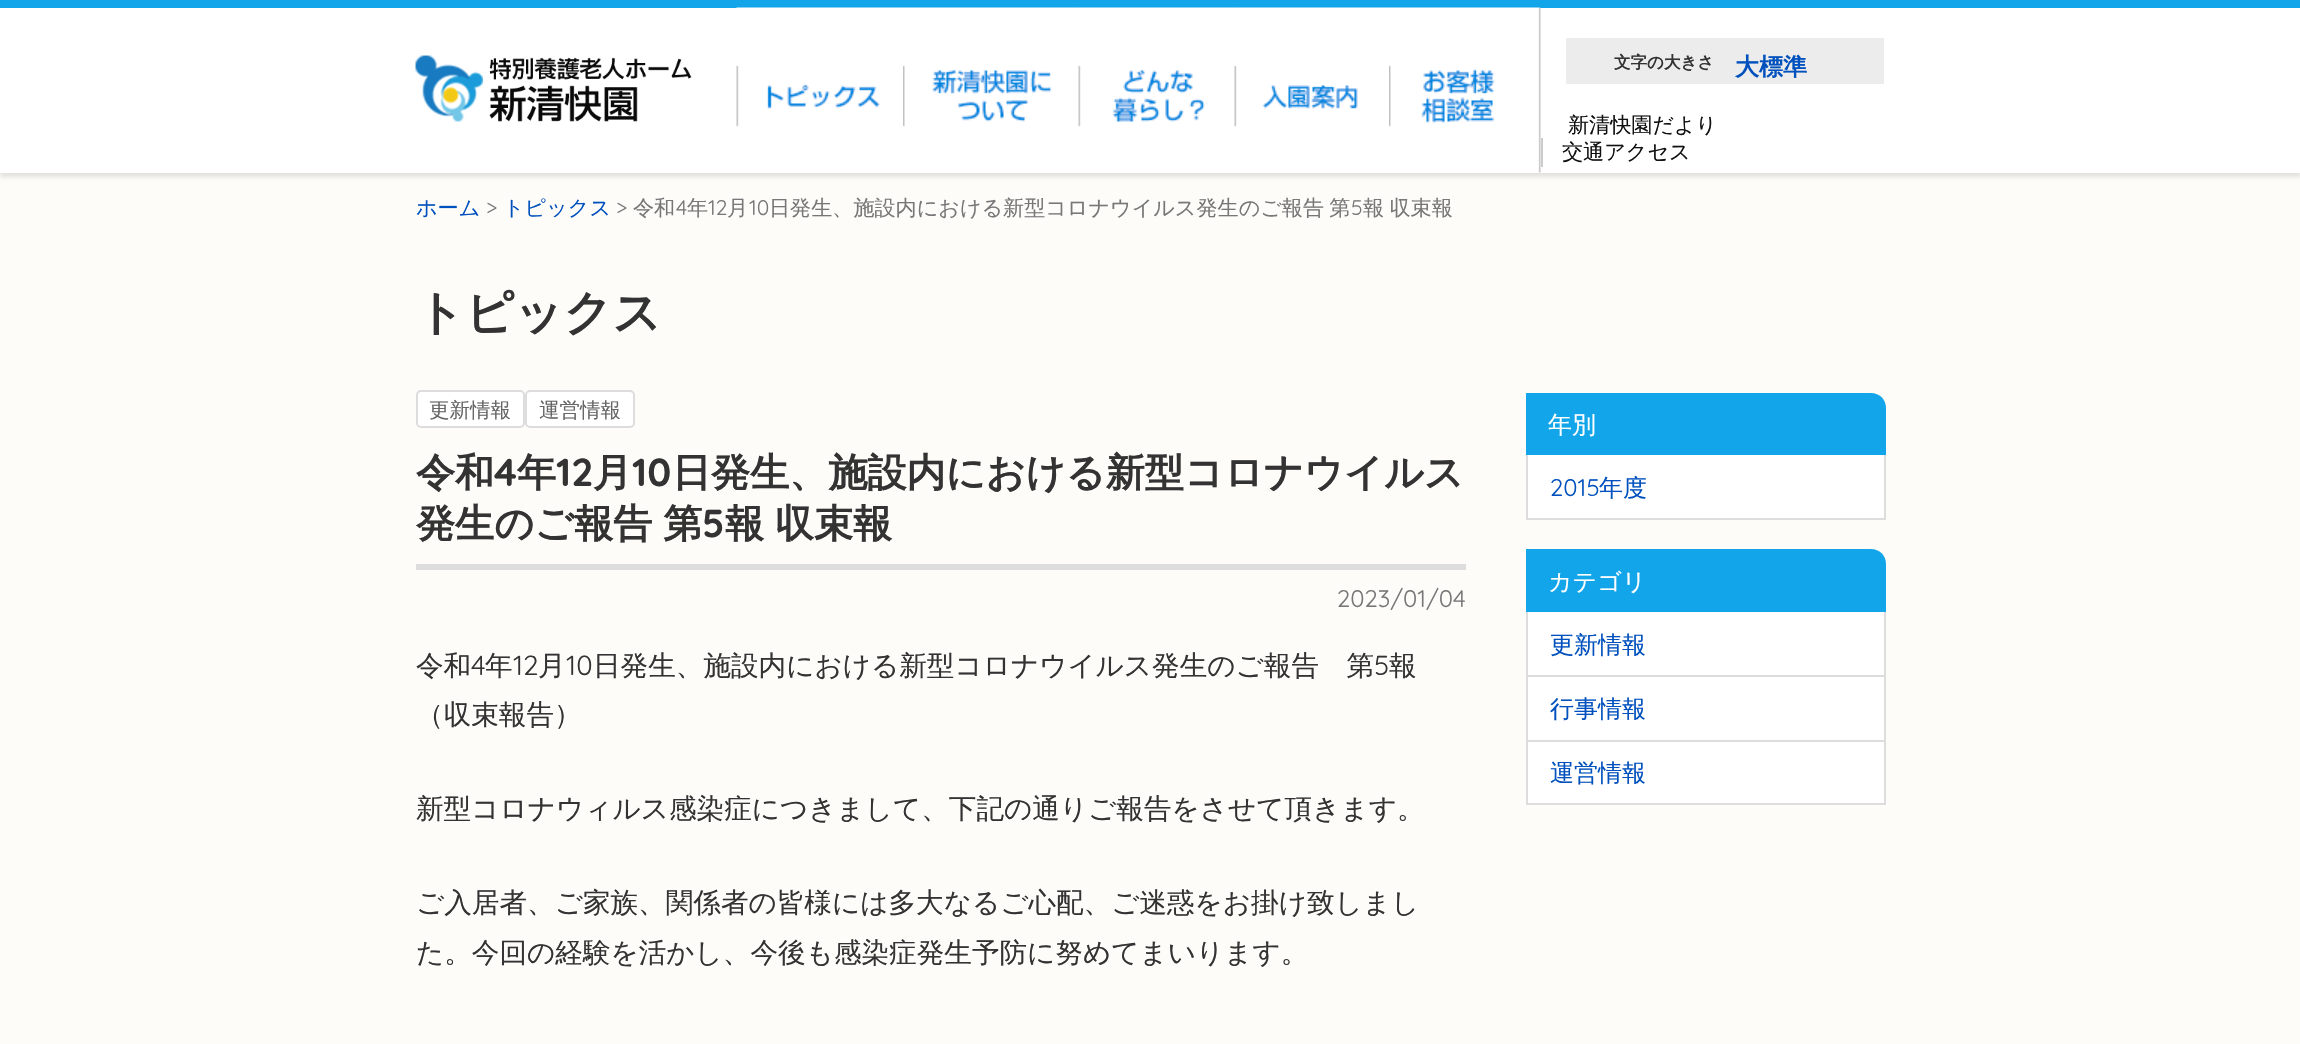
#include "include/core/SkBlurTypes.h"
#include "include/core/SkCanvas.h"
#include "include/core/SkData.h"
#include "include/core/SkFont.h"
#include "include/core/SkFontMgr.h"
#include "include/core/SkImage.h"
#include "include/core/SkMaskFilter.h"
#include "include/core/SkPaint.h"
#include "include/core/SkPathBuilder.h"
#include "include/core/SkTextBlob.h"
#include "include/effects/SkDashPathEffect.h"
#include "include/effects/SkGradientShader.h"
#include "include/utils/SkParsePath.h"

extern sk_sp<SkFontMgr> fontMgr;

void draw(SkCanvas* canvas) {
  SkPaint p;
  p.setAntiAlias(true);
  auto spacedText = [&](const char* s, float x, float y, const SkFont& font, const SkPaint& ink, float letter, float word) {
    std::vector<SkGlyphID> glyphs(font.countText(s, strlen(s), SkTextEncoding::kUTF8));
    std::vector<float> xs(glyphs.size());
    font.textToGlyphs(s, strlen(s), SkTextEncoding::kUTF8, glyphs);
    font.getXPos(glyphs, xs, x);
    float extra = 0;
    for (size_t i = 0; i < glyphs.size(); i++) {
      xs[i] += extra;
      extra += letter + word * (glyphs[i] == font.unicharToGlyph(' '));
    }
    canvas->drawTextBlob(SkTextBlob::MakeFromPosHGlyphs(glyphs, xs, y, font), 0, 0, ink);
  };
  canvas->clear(SkColorSetRGB(253, 252, 248));
  p.setColor(SkColorSetARGB(26, 0, 0, 0));
  p.setMaskFilter(SkMaskFilter::MakeBlur(kNormal_SkBlurStyle, 2));
  canvas->drawRect(SkRect::MakeLTRB(0, 5, 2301, 177), p);
  p.setMaskFilter(nullptr);
  p.setColor(SK_ColorWHITE);
  canvas->drawRect(SkRect::MakeLTRB(0, 8, 2300, 173), p);
  p.setColor(SkColorSetRGB(18, 165, 234));
  canvas->drawRect(SkRect::MakeLTRB(0, 0, 2300, 8), p);
  canvas->drawImageRect(SkImages::DeferredFromEncodedData(SkData::MakeFromFileName("images/1.png")), SkRect::MakeLTRB(415, 55, 692, 122), SkSamplingOptions());
  canvas->drawImageRect(SkImages::DeferredFromEncodedData(SkData::MakeFromFileName("images/2.png")), SkRect::MakeLTRB(736, 7, 903, 127), SkSamplingOptions());
  canvas->drawImageRect(SkImages::DeferredFromEncodedData(SkData::MakeFromFileName("images/3.png")), SkRect::MakeLTRB(903, 7, 1079, 127), SkSamplingOptions());
  canvas->drawImageRect(SkImages::DeferredFromEncodedData(SkData::MakeFromFileName("images/4.png")), SkRect::MakeLTRB(1078, 7, 1235, 127), SkSamplingOptions());
  canvas->drawImageRect(SkImages::DeferredFromEncodedData(SkData::MakeFromFileName("images/5.png")), SkRect::MakeLTRB(1234, 7, 1389, 127), SkSamplingOptions());
  canvas->drawImageRect(SkImages::DeferredFromEncodedData(SkData::MakeFromFileName("images/6.png")), SkRect::MakeLTRB(1389, 7, 1541, 173), SkSamplingOptions());
  p.setColor(SkColorSetRGB(236, 236, 236));
  canvas->drawRect(SkRect::MakeLTRB(1566, 38, 1884, 84), p);
  p.setColor(SkColorSetRGB(204, 204, 204));
  canvas->drawRect(SkRect::MakeLTRB(1541, 138, 1543, 167), p);
  p.setColor(SK_ColorWHITE);
  canvas->drawRoundRect(SkRect::MakeLTRB(417, 391, 524, 427), 4, 4, p);
  p.setStyle(SkPaint::kStroke_Style);
  p.setStrokeWidth(2);
  p.setColor(SkColorSetRGB(221, 221, 221));
  canvas->drawRoundRect(SkRect::MakeLTRB(417, 391, 524, 427), 4, 4, p);
  p.setStyle(SkPaint::kFill_Style);
  p.setColor(SK_ColorWHITE);
  canvas->drawRoundRect(SkRect::MakeLTRB(526, 391, 634, 427), 4, 4, p);
  p.setStyle(SkPaint::kStroke_Style);
  p.setColor(SkColorSetRGB(221, 221, 221));
  canvas->drawRoundRect(SkRect::MakeLTRB(526, 391, 634, 427), 4, 4, p);
  p.setStyle(SkPaint::kFill_Style);
  canvas->drawRect(SkRect::MakeLTRB(416, 564, 1466, 570), p);
  p.setColor(SkColorSetRGB(18, 165, 234));
  canvas->drawPath(SkPathBuilder().moveTo(1526, 393).lineTo(1871, 393).cubicTo(1879.5f, 393, 1886, 399.5f, 1886, 408).lineTo(1886, 455).lineTo(1526, 455).close().detach(), p);
  p.setColor(SK_ColorWHITE);
  canvas->drawRect(SkRect::MakeLTRB(1528, 455, 1884, 518), p);
  p.setColor(SkColorSetRGB(221, 221, 221));
  canvas->drawRect(SkRect::MakeLTRB(1884, 455, 1886, 519), p);
  canvas->drawRect(SkRect::MakeLTRB(1526, 518, 1886, 520), p);
  canvas->drawRect(SkRect::MakeLTRB(1526, 455, 1528, 519), p);
  p.setColor(SkColorSetRGB(18, 165, 234));
  canvas->drawPath(SkPathBuilder().moveTo(1526, 549).lineTo(1871, 549).cubicTo(1879.5f, 549, 1886, 555.5f, 1886, 564).lineTo(1886, 612).lineTo(1526, 612).close().detach(), p);
  p.setColor(SK_ColorWHITE);
  canvas->drawRect(SkRect::MakeLTRB(1528, 612, 1884, 803), p);
  p.setColor(SkColorSetRGB(221, 221, 221));
  canvas->drawRect(SkRect::MakeLTRB(1884, 612, 1886, 741), p);
  canvas->drawRect(SkRect::MakeLTRB(1526, 675, 1886, 677), p);
  canvas->drawRect(SkRect::MakeLTRB(1526, 612, 1528, 677), p);
  canvas->drawRect(SkRect::MakeLTRB(1526, 740, 1886, 742), p);
  canvas->drawRect(SkRect::MakeLTRB(1526, 677, 1528, 741), p);
  canvas->drawRect(SkRect::MakeLTRB(1884, 741, 1886, 804), p);
  canvas->drawRect(SkRect::MakeLTRB(1526, 803, 1886, 805), p);
  canvas->drawRect(SkRect::MakeLTRB(1526, 741, 1528, 804), p);
  SkFont font1(fontMgr->matchFamilyStyle("WenQuanYi Zen Hei", SkFontStyle::Bold()), 16.5f);
  font1.setSubpixel(true);
  p.setColor(SkColorSetRGB(51, 51, 51));
  canvas->drawString("文字の大きさ", 1614, 68, font1, p);
  SkFont font2(fontMgr->matchFamilyStyle("WenQuanYi Zen Hei", SkFontStyle::Bold()), 24);
  font2.setSubpixel(true);
  p.setColor(SkColorSetRGB(0, 80, 189));
  canvas->drawString("大標準", 1735, 75, font2, p);
  SkFont font3(fontMgr->matchFamilyStyle("WenQuanYi Zen Hei", SkFontStyle(500, SkFontStyle::kNormal_Width, SkFontStyle::kUpright_Slant)), 21.1f);
  font3.setSubpixel(true);
  p.setColor(SkColorSetRGB(17, 17, 17));
  canvas->drawString("新清快園だより", 1568, 132, font3, p);
  canvas->drawString("交通アクセス", 1562, 159, font3, p);
  p.setColor(SkColorSetRGB(0, 80, 189));
  canvas->drawString("ホーム", 416, 215, font3, p);
  SkFont font4(fontMgr->matchFamilyStyle("Quicksand", SkFontStyle::Normal()), 21.1f);
  font4.setSubpixel(true);
  p.setColor(SkColorSetRGB(119, 119, 119));
  canvas->drawString(">", 486, 215, font4, p);
  p.setColor(SkColorSetRGB(0, 80, 189));
  canvas->drawString("トピックス", 503, 215, font3, p);
  p.setColor(SkColorSetRGB(119, 119, 119));
  canvas->drawString(">", 616, 215, font4, p);
  canvas->drawString("令和", 633, 215, font3, p);
  canvas->drawString("4", 676, 215, font4, p);
  canvas->drawString("年", 687, 215, font3, p);
  canvas->drawString("12", 708, 215, font4, p);
  canvas->drawString("月", 727, 215, font3, p);
  canvas->drawString("10", 749, 215, font4, p);
  spacedText("日発生、施設内における新型コロナウイルス発生のご報告 第", 769, 215, font3, p, 0, -1);
  canvas->drawString("5", 1351, 215, font4, p);
  spacedText("報 収束報", 1363, 215, font3, p, 0, -1);
  SkFont font5(fontMgr->matchFamilyStyle("WenQuanYi Zen Hei", SkFontStyle::Bold()), 48);
  font5.setSubpixel(true);
  p.setColor(SkColorSetRGB(51, 51, 51));
  canvas->drawString("トピックス", 416, 329, font5, p);
  SkFont font6(fontMgr->matchFamilyStyle("WenQuanYi Zen Hei", SkFontStyle(500, SkFontStyle::kNormal_Width, SkFontStyle::kUpright_Slant)), 20.5f);
  font6.setSubpixel(true);
  p.setColor(SkColorSetRGB(102, 102, 102));
  canvas->drawString("更新情報", 429, 417, font6, p);
  canvas->drawString("運営情報", 539, 417, font6, p);
  SkFont font7(fontMgr->matchFamilyStyle("WenQuanYi Zen Hei", SkFontStyle::Bold()), 39.1f);
  font7.setSubpixel(true);
  p.setColor(SkColorSetRGB(51, 51, 51));
  canvas->drawString("令和", 416, 486, font7, p);
  SkFont font8(fontMgr->matchFamilyStyle("Quicksand", SkFontStyle::Bold()), 39.1f);
  font8.setSubpixel(true);
  canvas->drawString("4", 494, 486, font8, p);
  canvas->drawString("年", 517, 486, font7, p);
  canvas->drawString("12", 556, 486, font8, p);
  canvas->drawString("月", 593, 486, font7, p);
  canvas->drawString("10", 632, 486, font8, p);
  canvas->drawString("日発生、施設内における新型コロナウイルス", 672, 486, font7, p);
  spacedText("発生のご報告 第", 416, 537, font7, p, 0, -1);
  canvas->drawString("5", 702, 537, font8, p);
  spacedText("報 収束報", 725, 537, font7, p, 0, -1);
  SkFont font9(fontMgr->matchFamilyStyle("Quicksand", SkFontStyle::Normal()), 24);
  font9.setSubpixel(true);
  p.setColor(SkColorSetRGB(119, 119, 119));
  canvas->drawString("2023/01/04", 1337, 607, font9, p);
  SkFont font10(fontMgr->matchFamilyStyle("WenQuanYi Zen Hei", SkFontStyle(500, SkFontStyle::kNormal_Width, SkFontStyle::kUpright_Slant)), 27.6f);
  font10.setSubpixel(true);
  p.setColor(SkColorSetRGB(51, 51, 51));
  canvas->drawString("令和", 416, 675, font10, p);
  SkFont font11(fontMgr->matchFamilyStyle("Quicksand", SkFontStyle::Normal()), 27.6f);
  font11.setSubpixel(true);
  canvas->drawString("4", 471, 675, font11, p);
  canvas->drawString("年", 485, 675, font10, p);
  canvas->drawString("12", 513, 675, font11, p);
  canvas->drawString("月", 538, 675, font10, p);
  canvas->drawString("10", 566, 675, font11, p);
  canvas->drawString("日発生、施設内における新型コロナウイルス発生のご報告　第", 593, 675, font10, p);
  canvas->drawString("5", 1374, 675, font11, p);
  canvas->drawString("報", 1389, 675, font10, p);
  canvas->drawString("（収束報告）", 416, 724, font10, p);
  canvas->drawString("新型コロナウィルス感染症につきまして、下記の通りご報告をさせて頂きます。", 416, 818, font10, p);
  canvas->drawString("ご入居者、ご家族、関係者の皆様には多大なるご心配、ご迷惑をお掛け致しまし", 416, 912, font10, p);
  canvas->drawString("た。今回の経験を活かし、今後も感染症発生予防に努めてまいります。", 416, 962, font10, p);
  SkFont font12(fontMgr->matchFamilyStyle("WenQuanYi Zen Hei", SkFontStyle(500, SkFontStyle::kNormal_Width, SkFontStyle::kUpright_Slant)), 24);
  font12.setSubpixel(true);
  p.setColor(SK_ColorWHITE);
  canvas->drawString("年別", 1548, 433, font12, p);
  p.setColor(SkColorSetRGB(0, 80, 189));
  canvas->drawString("2015", 1550, 496, font9, p);
  canvas->drawString("年度", 1599, 496, font12, p);
  p.setColor(SK_ColorWHITE);
  canvas->drawString("カテゴリ", 1548, 590, font12, p);
  p.setColor(SkColorSetRGB(0, 80, 189));
  canvas->drawString("更新情報", 1550, 653, font12, p);
  canvas->drawString("行事情報", 1550, 717, font12, p);
  canvas->drawString("運営情報", 1550, 781, font12, p);
}
